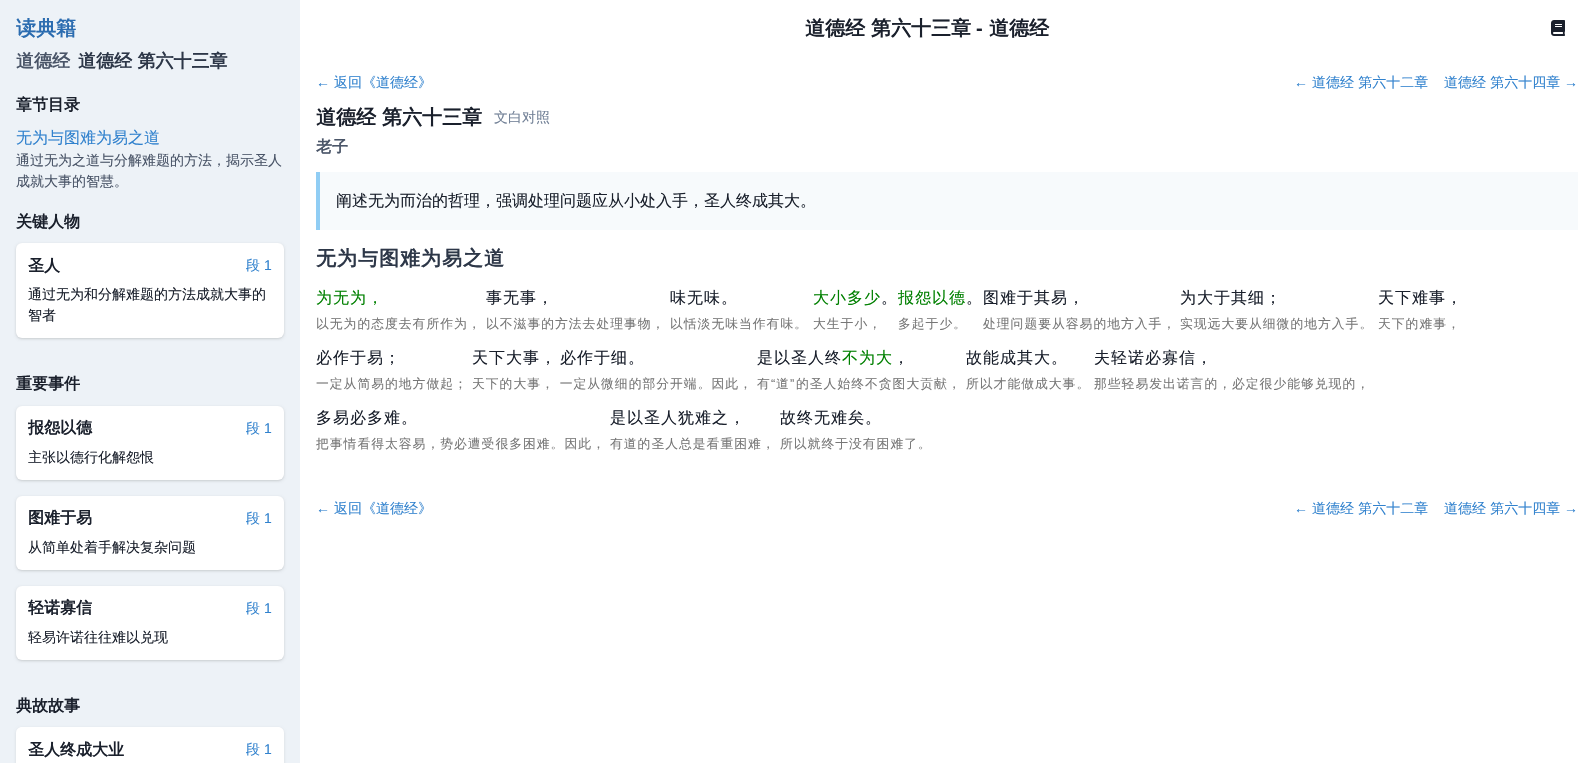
#include "include/core/SkBlurTypes.h"
#include "include/core/SkCanvas.h"
#include "include/core/SkData.h"
#include "include/core/SkFont.h"
#include "include/core/SkFontMgr.h"
#include "include/core/SkImage.h"
#include "include/core/SkMaskFilter.h"
#include "include/core/SkPaint.h"
#include "include/core/SkPathBuilder.h"
#include "include/core/SkTextBlob.h"
#include "include/effects/SkDashPathEffect.h"
#include "include/effects/SkGradientShader.h"
#include "include/utils/SkParsePath.h"

extern sk_sp<SkFontMgr> fontMgr;

void draw(SkCanvas* canvas) {
  SkPaint p;
  p.setAntiAlias(true);
  auto spacedText = [&](const char* s, float x, float y, const SkFont& font, const SkPaint& ink, float letter, float word) {
    std::vector<SkGlyphID> glyphs(font.countText(s, strlen(s), SkTextEncoding::kUTF8));
    std::vector<float> xs(glyphs.size());
    font.textToGlyphs(s, strlen(s), SkTextEncoding::kUTF8, glyphs);
    font.getXPos(glyphs, xs, x);
    float extra = 0;
    for (size_t i = 0; i < glyphs.size(); i++) {
      xs[i] += extra;
      extra += letter + word * (glyphs[i] == font.unicharToGlyph(' '));
    }
    canvas->drawTextBlob(SkTextBlob::MakeFromPosHGlyphs(glyphs, xs, y, font), 0, 0, ink);
  };
  canvas->clear(SK_ColorWHITE);
  p.setColor(SkColorSetRGB(237, 242, 247));
  canvas->drawRect(SkRect::MakeLTRB(0, 0, 300, 763), p);
  p.setColor(SkColorSetARGB(15, 0, 0, 0));
  p.setMaskFilter(SkMaskFilter::MakeBlur(kNormal_SkBlurStyle, 1));
  canvas->drawRoundRect(SkRect::MakeLTRB(16, 244, 284, 339), 6, 6, p);
  p.setMaskFilter(nullptr);
  p.setColor(SkColorSetARGB(26, 0, 0, 0));
  p.setMaskFilter(SkMaskFilter::MakeBlur(kNormal_SkBlurStyle, 1.5f));
  canvas->drawRoundRect(SkRect::MakeLTRB(16, 244, 284, 339), 6, 6, p);
  p.setMaskFilter(nullptr);
  p.setColor(SK_ColorWHITE);
  canvas->drawRoundRect(SkRect::MakeLTRB(16, 243, 284, 338), 6, 6, p);
  p.setColor(SkColorSetARGB(15, 0, 0, 0));
  p.setMaskFilter(SkMaskFilter::MakeBlur(kNormal_SkBlurStyle, 1));
  canvas->drawRoundRect(SkRect::MakeLTRB(16, 407, 284, 481), 6, 6, p);
  p.setMaskFilter(nullptr);
  p.setColor(SkColorSetARGB(26, 0, 0, 0));
  p.setMaskFilter(SkMaskFilter::MakeBlur(kNormal_SkBlurStyle, 1.5f));
  canvas->drawRoundRect(SkRect::MakeLTRB(16, 407, 284, 481), 6, 6, p);
  p.setMaskFilter(nullptr);
  p.setColor(SK_ColorWHITE);
  canvas->drawRoundRect(SkRect::MakeLTRB(16, 406, 284, 480), 6, 6, p);
  p.setColor(SkColorSetARGB(15, 0, 0, 0));
  p.setMaskFilter(SkMaskFilter::MakeBlur(kNormal_SkBlurStyle, 1));
  canvas->drawRoundRect(SkRect::MakeLTRB(16, 497, 284, 571), 6, 6, p);
  p.setMaskFilter(nullptr);
  p.setColor(SkColorSetARGB(26, 0, 0, 0));
  p.setMaskFilter(SkMaskFilter::MakeBlur(kNormal_SkBlurStyle, 1.5f));
  canvas->drawRoundRect(SkRect::MakeLTRB(16, 497, 284, 571), 6, 6, p);
  p.setMaskFilter(nullptr);
  p.setColor(SK_ColorWHITE);
  canvas->drawRoundRect(SkRect::MakeLTRB(16, 496, 284, 570), 6, 6, p);
  p.setColor(SkColorSetARGB(15, 0, 0, 0));
  p.setMaskFilter(SkMaskFilter::MakeBlur(kNormal_SkBlurStyle, 1));
  canvas->drawRoundRect(SkRect::MakeLTRB(16, 587, 284, 661), 6, 6, p);
  p.setMaskFilter(nullptr);
  p.setColor(SkColorSetARGB(26, 0, 0, 0));
  p.setMaskFilter(SkMaskFilter::MakeBlur(kNormal_SkBlurStyle, 1.5f));
  canvas->drawRoundRect(SkRect::MakeLTRB(16, 587, 284, 661), 6, 6, p);
  p.setMaskFilter(nullptr);
  p.setColor(SK_ColorWHITE);
  canvas->drawRoundRect(SkRect::MakeLTRB(16, 586, 284, 660), 6, 6, p);
  p.setColor(SkColorSetARGB(26, 0, 0, 0));
  p.setMaskFilter(SkMaskFilter::MakeBlur(kNormal_SkBlurStyle, 1.5f));
  canvas->drawRoundRect(SkRect::MakeLTRB(16, 728, 284, 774), 6, 6, p);
  p.setMaskFilter(nullptr);
  p.setColor(SK_ColorWHITE);
  canvas->drawPath(SkPathBuilder().moveTo(22, 727).lineTo(278, 727).cubicTo(281.5f, 727, 284, 729.5f, 284, 733).lineTo(284, 763).lineTo(16, 763).lineTo(16, 733).cubicTo(16, 729.5f, 18.5f, 727, 22, 727).close().detach(), p);
  p.setColor(SkColorSetRGB(247, 250, 252));
  canvas->drawRect(SkRect::MakeLTRB(320, 172, 1578, 230), p);
  p.setColor(SkColorSetRGB(144, 205, 244));
  canvas->drawRect(SkRect::MakeLTRB(316, 172, 320, 230), p);
  canvas->drawImageRect(SkImages::DeferredFromEncodedData(SkData::MakeFromFileName("images/1.png")), SkRect::MakeLTRB(1551, 20, 1565, 36), SkSamplingOptions());
  SkFont font1(fontMgr->matchFamilyStyle("WenQuanYi Zen Hei", SkFontStyle::Bold()), 20);
  font1.setSubpixel(true);
  p.setColor(SkColorSetRGB(43, 108, 176));
  canvas->drawString("读典籍", 16, 35, font1, p);
  SkFont font2(fontMgr->matchFamilyStyle("WenQuanYi Zen Hei", SkFontStyle::Bold()), 18);
  font2.setSubpixel(true);
  p.setColor(SkColorSetRGB(74, 85, 104));
  canvas->drawString("道德经", 16, 67, font2, p);
  p.setColor(SkColorSetRGB(45, 55, 72));
  canvas->drawString("道德经 第六十三章", 78, 67, font2, p);
  SkFont font3(fontMgr->matchFamilyStyle("WenQuanYi Zen Hei", SkFontStyle::Bold()), 16);
  font3.setSubpixel(true);
  p.setColor(SkColorSetRGB(26, 32, 44));
  canvas->drawString("章节目录", 16, 110, font3, p);
  SkFont font4(fontMgr->matchFamilyStyle("WenQuanYi Zen Hei", SkFontStyle(500, SkFontStyle::kNormal_Width, SkFontStyle::kUpright_Slant)), 16);
  font4.setSubpixel(true);
  p.setColor(SkColorSetRGB(49, 130, 206));
  canvas->drawString("无为与图难为易之道", 16, 143, font4, p);
  SkFont font5(fontMgr->matchFamilyStyle("WenQuanYi Zen Hei", SkFontStyle(500, SkFontStyle::kNormal_Width, SkFontStyle::kUpright_Slant)), 14);
  font5.setSubpixel(true);
  p.setColor(SkColorSetRGB(74, 85, 104));
  canvas->drawString("通过无为之道与分解难题的方法，揭示圣人", 16, 165, font5, p);
  canvas->drawString("成就大事的智慧。", 16, 186, font5, p);
  p.setColor(SkColorSetRGB(26, 32, 44));
  canvas->drawString("关键人物", 16, 227, font3, p);
  canvas->drawString("圣人", 28, 271, font3, p);
  p.setColor(SkColorSetRGB(49, 130, 206));
  canvas->drawString("段", 246, 270, font5, p);
  SkFont font6(fontMgr->matchFamilyStyle("Liberation Sans", SkFontStyle::Normal()), 14);
  font6.setSubpixel(true);
  canvas->drawString("1", 264, 270, font6, p);
  p.setColor(SkColorSetRGB(26, 32, 44));
  canvas->drawString("通过无为和分解难题的方法成就大事的", 28, 299, font5, p);
  canvas->drawString("智者", 28, 320, font5, p);
  canvas->drawString("重要事件", 16, 389, font3, p);
  canvas->drawString("报怨以德", 28, 433, font3, p);
  p.setColor(SkColorSetRGB(49, 130, 206));
  canvas->drawString("段", 246, 433, font5, p);
  canvas->drawString("1", 264, 433, font6, p);
  p.setColor(SkColorSetRGB(26, 32, 44));
  canvas->drawString("主张以德行化解怨恨", 28, 462, font5, p);
  canvas->drawString("图难于易", 28, 523, font3, p);
  p.setColor(SkColorSetRGB(49, 130, 206));
  canvas->drawString("段", 246, 523, font5, p);
  canvas->drawString("1", 264, 523, font6, p);
  p.setColor(SkColorSetRGB(26, 32, 44));
  canvas->drawString("从简单处着手解决复杂问题", 28, 552, font5, p);
  canvas->drawString("轻诺寡信", 28, 613, font3, p);
  p.setColor(SkColorSetRGB(49, 130, 206));
  canvas->drawString("段", 246, 613, font5, p);
  canvas->drawString("1", 264, 613, font6, p);
  p.setColor(SkColorSetRGB(26, 32, 44));
  canvas->drawString("轻易许诺往往难以兑现", 28, 642, font5, p);
  canvas->drawString("典故故事", 16, 711, font3, p);
  canvas->drawString("圣人终成大业", 28, 755, font3, p);
  p.setColor(SkColorSetRGB(49, 130, 206));
  canvas->drawString("段", 246, 754, font5, p);
  canvas->drawString("1", 264, 754, font6, p);
  canvas->drawString("←", 316, 87, font6, p);
  canvas->drawString("返回《道德经》", 334, 87, font5, p);
  canvas->drawString("←", 1294, 87, font6, p);
  canvas->drawString("道德经 第六十二章", 1312, 87, font5, p);
  canvas->drawString("道德经 第六十四章", 1444, 87, font5, p);
  canvas->drawString("→", 1564, 87, font6, p);
  p.setColor(SkColorSetRGB(26, 32, 44));
  canvas->drawString("道德经 第六十三章", 316, 124, font1, p);
  p.setColor(SkColorSetRGB(113, 128, 150));
  canvas->drawString("文白对照", 494, 122, font5, p);
  p.setColor(SkColorSetRGB(74, 85, 104));
  canvas->drawString("老子", 316, 152, font3, p);
  p.setColor(SkColorSetRGB(26, 32, 44));
  canvas->drawString("阐述无为而治的哲理，强调处理问题应从小处入手，圣人终成其大。", 336, 206, font4, p);
  p.setColor(SkColorSetRGB(45, 55, 72));
  spacedText("无为与图难为易之道", 316, 265, font1, p, 1, 0);
  p.setColor(SkColorSetRGB(0, 128, 0));
  spacedText("为无为，", 316, 303, font4, p, 1, 0);
  SkFont font7(fontMgr->matchFamilyStyle("WenQuanYi Zen Hei", SkFontStyle(500, SkFontStyle::kNormal_Width, SkFontStyle::kUpright_Slant)), 12.8f);
  font7.setSubpixel(true);
  p.setColor(SkColorSetRGB(119, 119, 119));
  spacedText("以无为的态度去有所作为，", 316, 328, font7, p, 1, 0);
  p.setColor(SkColorSetRGB(26, 32, 44));
  spacedText("事无事，", 486, 303, font4, p, 1, 0);
  p.setColor(SkColorSetRGB(119, 119, 119));
  spacedText("以不滋事的方法去处理事物，", 486, 328, font7, p, 1, 0);
  p.setColor(SkColorSetRGB(26, 32, 44));
  spacedText("味无味。", 670, 303, font4, p, 1, 0);
  p.setColor(SkColorSetRGB(119, 119, 119));
  spacedText("以恬淡无味当作有味。", 670, 328, font7, p, 1, 0);
  p.setColor(SkColorSetRGB(0, 128, 0));
  spacedText("大小多少", 813, 303, font4, p, 1, 0);
  p.setColor(SkColorSetRGB(26, 32, 44));
  spacedText("。", 881, 303, font4, p, 1, 0);
  p.setColor(SkColorSetRGB(119, 119, 119));
  spacedText("大生于小，", 813, 328, font7, p, 1, 0);
  p.setColor(SkColorSetRGB(0, 128, 0));
  spacedText("报怨以德", 898, 303, font4, p, 1, 0);
  p.setColor(SkColorSetRGB(26, 32, 44));
  spacedText("。图难于其易，", 966, 303, font4, p, 1, 0);
  p.setColor(SkColorSetRGB(119, 119, 119));
  spacedText("多起于少。", 898, 328, font7, p, 1, 0);
  p.setColor(SkColorSetRGB(26, 32, 44));
  spacedText("为大于其细；", 1180, 303, font4, p, 1, 0);
  p.setColor(SkColorSetRGB(119, 119, 119));
  spacedText("实现远大要从细微的地方入手。", 1180, 328, font7, p, 1, 0);
  p.setColor(SkColorSetRGB(26, 32, 44));
  spacedText("天下难事，", 1378, 303, font4, p, 1, 0);
  p.setColor(SkColorSetRGB(119, 119, 119));
  spacedText("天下的难事，", 1378, 328, font7, p, 1, 0);
  spacedText("处理问题要从容易的地方入手，", 983, 328, font7, p, 1, 0);
  p.setColor(SkColorSetRGB(26, 32, 44));
  spacedText("必作于易；", 316, 363, font4, p, 1, 0);
  p.setColor(SkColorSetRGB(119, 119, 119));
  spacedText("一定从简易的地方做起；", 316, 388, font7, p, 1, 0);
  p.setColor(SkColorSetRGB(26, 32, 44));
  spacedText("天下大事，", 472, 363, font4, p, 1, 0);
  p.setColor(SkColorSetRGB(119, 119, 119));
  spacedText("天下的大事， 一定从微细的部分开端。因此，", 472, 388, font7, p, 1, 0);
  p.setColor(SkColorSetRGB(26, 32, 44));
  spacedText("必作于细。", 560, 363, font4, p, 1, 0);
  spacedText("是以圣人终", 757, 363, font4, p, 1, 0);
  p.setColor(SkColorSetRGB(0, 128, 0));
  spacedText("不为大", 842, 363, font4, p, 1, 0);
  p.setColor(SkColorSetRGB(26, 32, 44));
  spacedText("，", 893, 363, font4, p, 1, 0);
  p.setColor(SkColorSetRGB(119, 119, 119));
  spacedText("有", 757, 388, font7, p, 1, 0);
  SkFont font8(fontMgr->matchFamilyStyle("Liberation Sans", SkFontStyle::Normal()), 12.8f);
  font8.setSubpixel(true);
  spacedText("“", 771, 388, font8, p, 1, 0);
  spacedText("道", 776, 388, font7, p, 1, 0);
  spacedText("”", 790, 388, font8, p, 1, 0);
  spacedText("的圣人始终不贪图大贡献，", 796, 388, font7, p, 1, 0);
  p.setColor(SkColorSetRGB(26, 32, 44));
  spacedText("故能成其大。", 966, 363, font4, p, 1, 0);
  p.setColor(SkColorSetRGB(119, 119, 119));
  spacedText("所以才能做成大事。", 966, 388, font7, p, 1, 0);
  p.setColor(SkColorSetRGB(26, 32, 44));
  spacedText("夫轻诺必寡信，", 1094, 363, font4, p, 1, 0);
  p.setColor(SkColorSetRGB(119, 119, 119));
  spacedText("那些轻易发出诺言的，必定很少能够兑现的，", 1094, 388, font7, p, 1, 0);
  p.setColor(SkColorSetRGB(26, 32, 44));
  spacedText("多易必多难。", 316, 423, font4, p, 1, 0);
  p.setColor(SkColorSetRGB(119, 119, 119));
  spacedText("把事情看得太容易，势必遭受很多困难。因此，", 316, 448, font7, p, 1, 0);
  p.setColor(SkColorSetRGB(26, 32, 44));
  spacedText("是以圣人犹难之，", 610, 423, font4, p, 1, 0);
  p.setColor(SkColorSetRGB(119, 119, 119));
  spacedText("有道的圣人总是看重困难，", 610, 448, font7, p, 1, 0);
  p.setColor(SkColorSetRGB(26, 32, 44));
  spacedText("故终无难矣。", 780, 423, font4, p, 1, 0);
  p.setColor(SkColorSetRGB(119, 119, 119));
  spacedText("所以就终于没有困难了。", 780, 448, font7, p, 1, 0);
  p.setColor(SkColorSetRGB(49, 130, 206));
  canvas->drawString("←", 316, 513, font6, p);
  canvas->drawString("返回《道德经》", 334, 513, font5, p);
  canvas->drawString("←", 1294, 513, font6, p);
  canvas->drawString("道德经 第六十二章", 1312, 513, font5, p);
  canvas->drawString("道德经 第六十四章", 1444, 513, font5, p);
  canvas->drawString("→", 1564, 513, font6, p);
  p.setColor(SkColorSetRGB(26, 32, 44));
  canvas->drawString("道德经 第六十三章", 805, 35, font1, p);
  SkFont font9(fontMgr->matchFamilyStyle("Liberation Sans", SkFontStyle::Bold()), 20);
  font9.setSubpixel(true);
  canvas->drawString("-", 976, 35, font9, p);
  canvas->drawString("道德经", 989, 35, font1, p);
}
